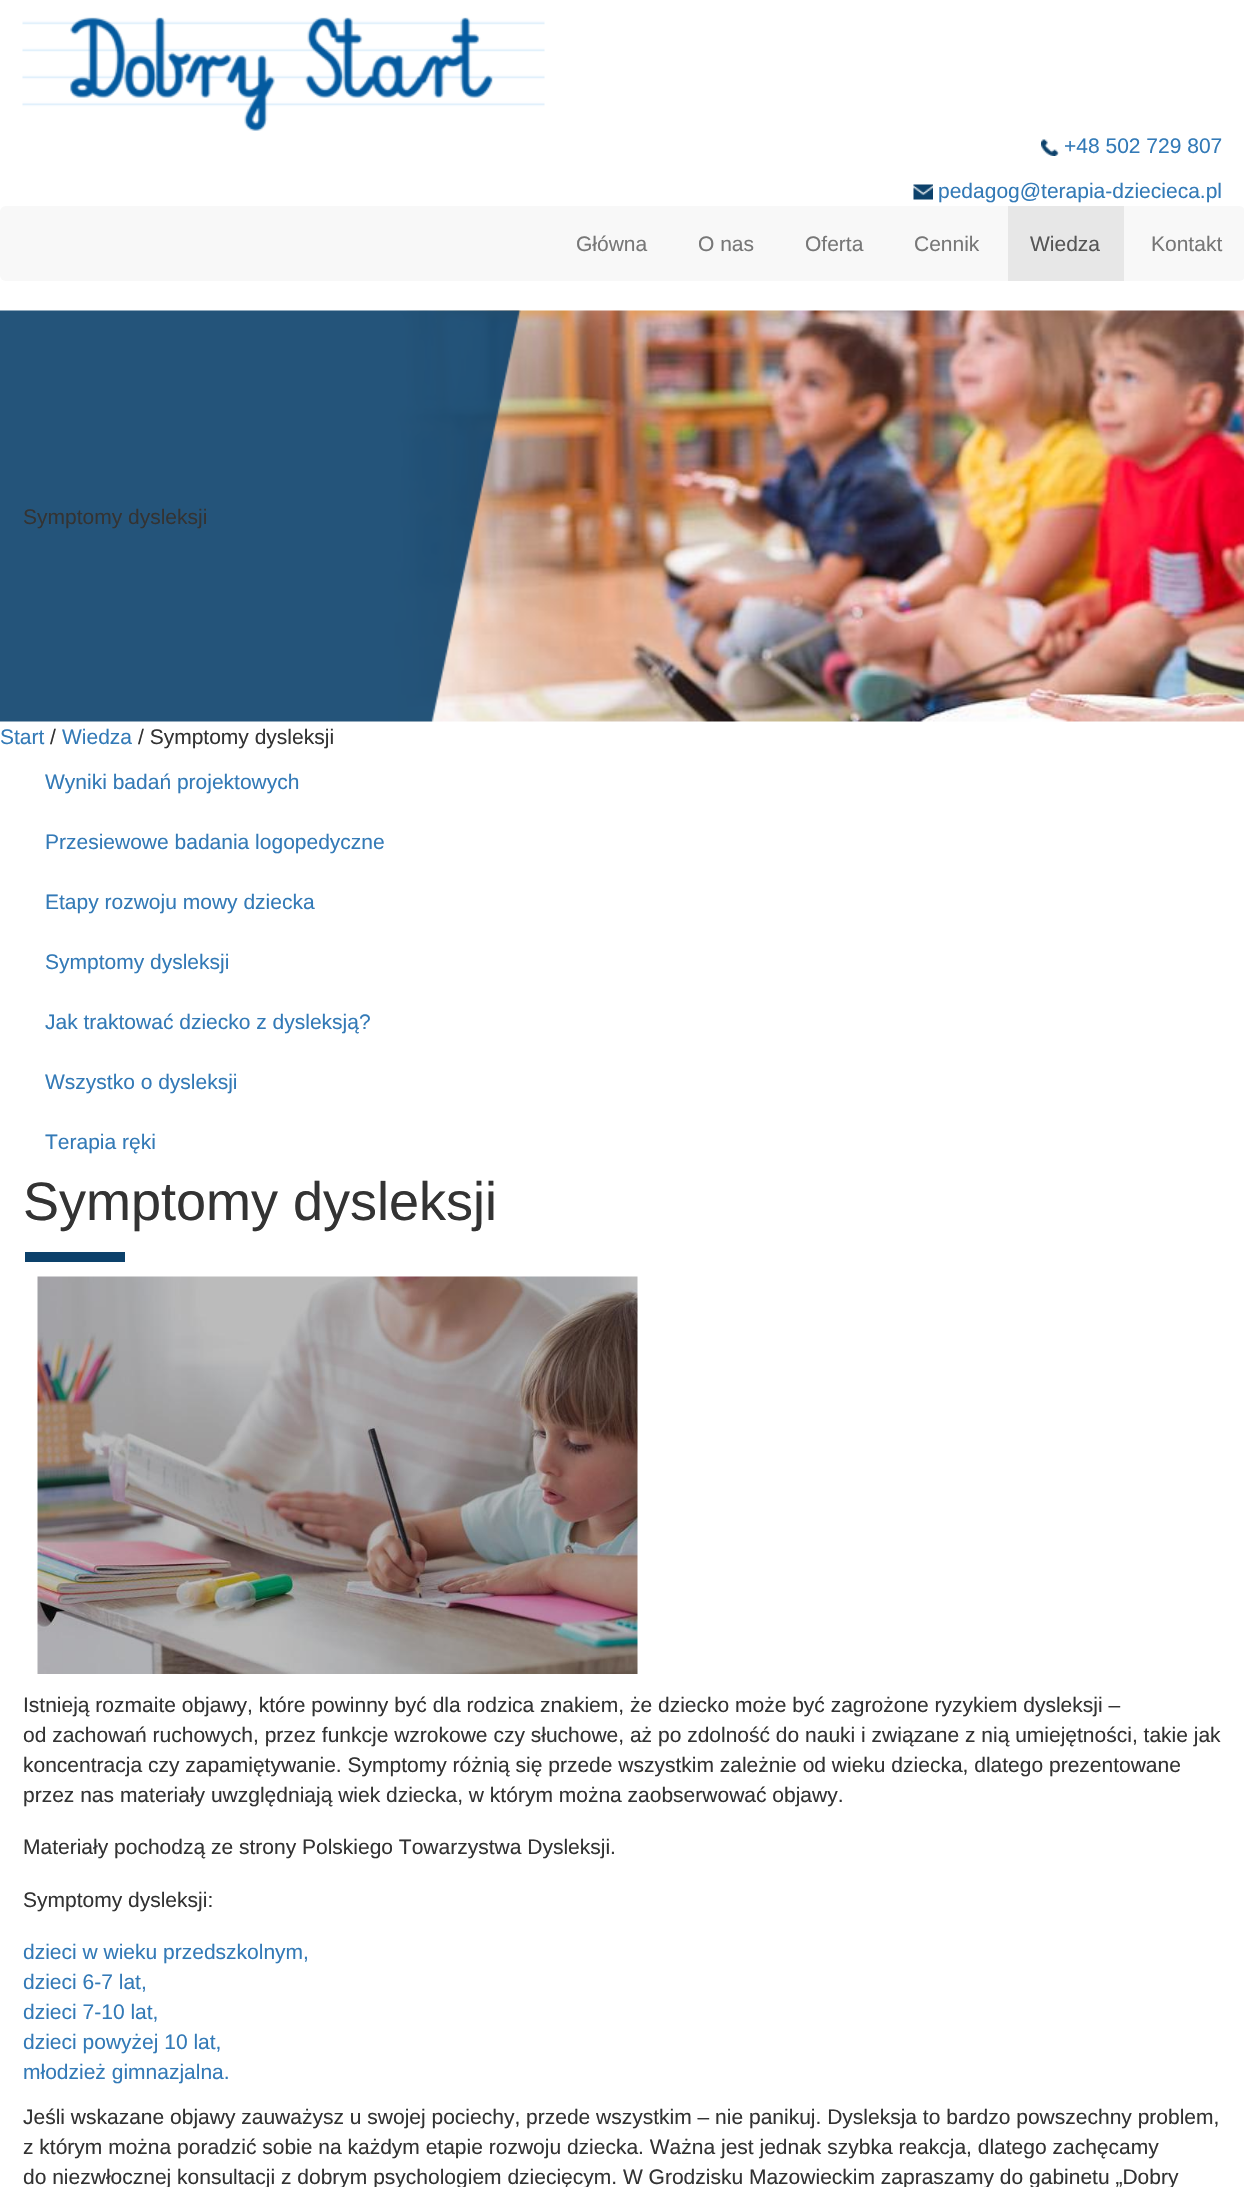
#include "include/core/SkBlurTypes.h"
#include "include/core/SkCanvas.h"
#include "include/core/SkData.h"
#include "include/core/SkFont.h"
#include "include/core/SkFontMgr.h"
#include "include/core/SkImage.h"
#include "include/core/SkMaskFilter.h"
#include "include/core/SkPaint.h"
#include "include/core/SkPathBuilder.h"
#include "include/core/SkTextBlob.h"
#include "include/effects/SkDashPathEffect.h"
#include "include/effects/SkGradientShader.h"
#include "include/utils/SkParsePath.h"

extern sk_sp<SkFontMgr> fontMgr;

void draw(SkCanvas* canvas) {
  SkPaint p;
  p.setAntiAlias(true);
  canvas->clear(SK_ColorWHITE);
  canvas->drawImageRect(SkImages::DeferredFromEncodedData(SkData::MakeFromFileName("images/1.png")), SkRect::MakeLTRB(22, 17, 545, 131), SkSamplingOptions());
  canvas->drawImageRect(SkImages::DeferredFromEncodedData(SkData::MakeFromFileName("images/2.png")), SkRect::MakeLTRB(1041, 139, 1059, 156), SkSamplingOptions());
  canvas->drawImageRect(SkImages::DeferredFromEncodedData(SkData::MakeFromFileName("images/3.png")), SkRect::MakeLTRB(913, 184, 933, 200), SkSamplingOptions());
  p.setColor(SkColorSetRGB(248, 248, 248));
  canvas->drawRoundRect(SkRect::MakeLTRB(0, 206, 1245, 281), 6, 6, p);
  p.setColor(SkColorSetRGB(231, 231, 231));
  canvas->drawRect(SkRect::MakeLTRB(1008, 206, 1124, 281), p);
  canvas->drawImageRect(SkImages::DeferredFromEncodedData(SkData::MakeFromFileName("images/5.png")), SkRect::MakeLTRB(380, 310, 1244, 722), SkSamplingOptions());
  canvas->drawImageRect(SkImages::DeferredFromEncodedData(SkData::MakeFromFileName("images/4.png")), SkRect::MakeLTRB(0, 310, 521, 722), SkSamplingOptions());
  p.setColor(SkColorSetRGB(12, 65, 107));
  canvas->drawRect(SkRect::MakeLTRB(25, 1252, 125, 1262), p);
  canvas->drawImageRect(SkImages::DeferredFromEncodedData(SkData::MakeFromFileName("images/6.png")), SkRect::MakeLTRB(37, 1276, 638, 1674), SkSamplingOptions());
  SkFont font1(fontMgr->matchFamilyStyle("Liberation Sans", SkFontStyle::Normal()), 21);
  font1.setSubpixel(true);
  p.setColor(SkColorSetRGB(51, 122, 183));
  canvas->drawString("+48 502 729 807", 1064, 153, font1, p);
  canvas->drawString("pedagog@terapia-dziecieca.pl", 938, 198, font1, p);
  p.setColor(SkColorSetRGB(119, 119, 119));
  canvas->drawString("Główna", 576, 251, font1, p);
  canvas->drawString("O nas", 698, 251, font1, p);
  canvas->drawString("Oferta", 805, 251, font1, p);
  canvas->drawString("Cennik", 914, 251, font1, p);
  p.setColor(SkColorSetRGB(85, 85, 85));
  canvas->drawString("Wiedza", 1030, 251, font1, p);
  p.setColor(SkColorSetRGB(119, 119, 119));
  canvas->drawString("Kontakt", 1151, 251, font1, p);
  p.setColor(SkColorSetRGB(51, 51, 51));
  canvas->drawString("Symptomy dysleksji", 23, 524, font1, p);
  p.setColor(SkColorSetRGB(51, 122, 183));
  canvas->drawString("Start", 0, 744, font1, p);
  p.setColor(SkColorSetRGB(51, 51, 51));
  canvas->drawString("/", 50, 744, font1, p);
  p.setColor(SkColorSetRGB(51, 122, 183));
  canvas->drawString("Wiedza", 62, 744, font1, p);
  p.setColor(SkColorSetRGB(51, 51, 51));
  canvas->drawString("/ Symptomy dysleksji", 138, 744, font1, p);
  p.setColor(SkColorSetRGB(51, 122, 183));
  canvas->drawString("Wyniki badań projektowych", 45, 789, font1, p);
  canvas->drawString("Przesiewowe badania logopedyczne", 45, 849, font1, p);
  canvas->drawString("Etapy rozwoju mowy dziecka", 45, 909, font1, p);
  canvas->drawString("Symptomy dysleksji", 45, 969, font1, p);
  canvas->drawString("Jak traktować dziecko z dysleksją?", 45, 1029, font1, p);
  canvas->drawString("Wszystko o dysleksji", 45, 1089, font1, p);
  canvas->drawString("Terapia ręki", 45, 1149, font1, p);
  SkFont font2(fontMgr->matchFamilyStyle("Liberation Sans", SkFontStyle::Normal()), 54);
  font2.setSubpixel(true);
  p.setColor(SkColorSetRGB(51, 51, 51));
  canvas->drawString("Symptomy dysleksji", 23, 1220, font2, p);
  canvas->drawString("Istnieją rozmaite objawy, które powinny być dla rodzica znakiem, że dziecko może być zagrożone ryzykiem dysleksji –", 23, 1712, font1, p);
  canvas->drawString("od zachowań ruchowych, przez funkcje wzrokowe czy słuchowe, aż po zdolność do nauki i związane z nią umiejętności, takie jak", 23, 1742, font1, p);
  canvas->drawString("koncentracja czy zapamiętywanie. Symptomy różnią się przede wszystkim zależnie od wieku dziecka, dlatego prezentowane", 23, 1772, font1, p);
  canvas->drawString("przez nas materiały uwzględniają wiek dziecka, w którym można zaobserwować objawy.", 23, 1802, font1, p);
  canvas->drawString("Materiały pochodzą ze strony Polskiego Towarzystwa Dysleksji.", 23, 1854, font1, p);
  canvas->drawString("Symptomy dysleksji:", 23, 1907, font1, p);
  p.setColor(SkColorSetRGB(51, 122, 183));
  canvas->drawString("dzieci w wieku przedszkolnym,", 23, 1959, font1, p);
  canvas->drawString("dzieci 6-7 lat,", 23, 1989, font1, p);
  canvas->drawString("dzieci 7-10 lat,", 23, 2019, font1, p);
  canvas->drawString("dzieci powyżej 10 lat,", 23, 2049, font1, p);
  canvas->drawString("młodzież gimnazjalna.", 23, 2079, font1, p);
  p.setColor(SkColorSetRGB(51, 51, 51));
  canvas->drawString("Jeśli wskazane objawy zauważysz u swojej pociechy, przede wszystkim – nie panikuj. Dysleksja to bardzo powszechny problem,", 23, 2124, font1, p);
  canvas->drawString("z którym można poradzić sobie na każdym etapie rozwoju dziecka. Ważna jest jednak szybka reakcja, dlatego zachęcamy", 23, 2154, font1, p);
  canvas->drawString("do niezwłocznej konsultacji z dobrym psychologiem dziecięcym. W Grodzisku Mazowieckim zapraszamy do gabinetu „Dobry", 23, 2184, font1, p);
}
